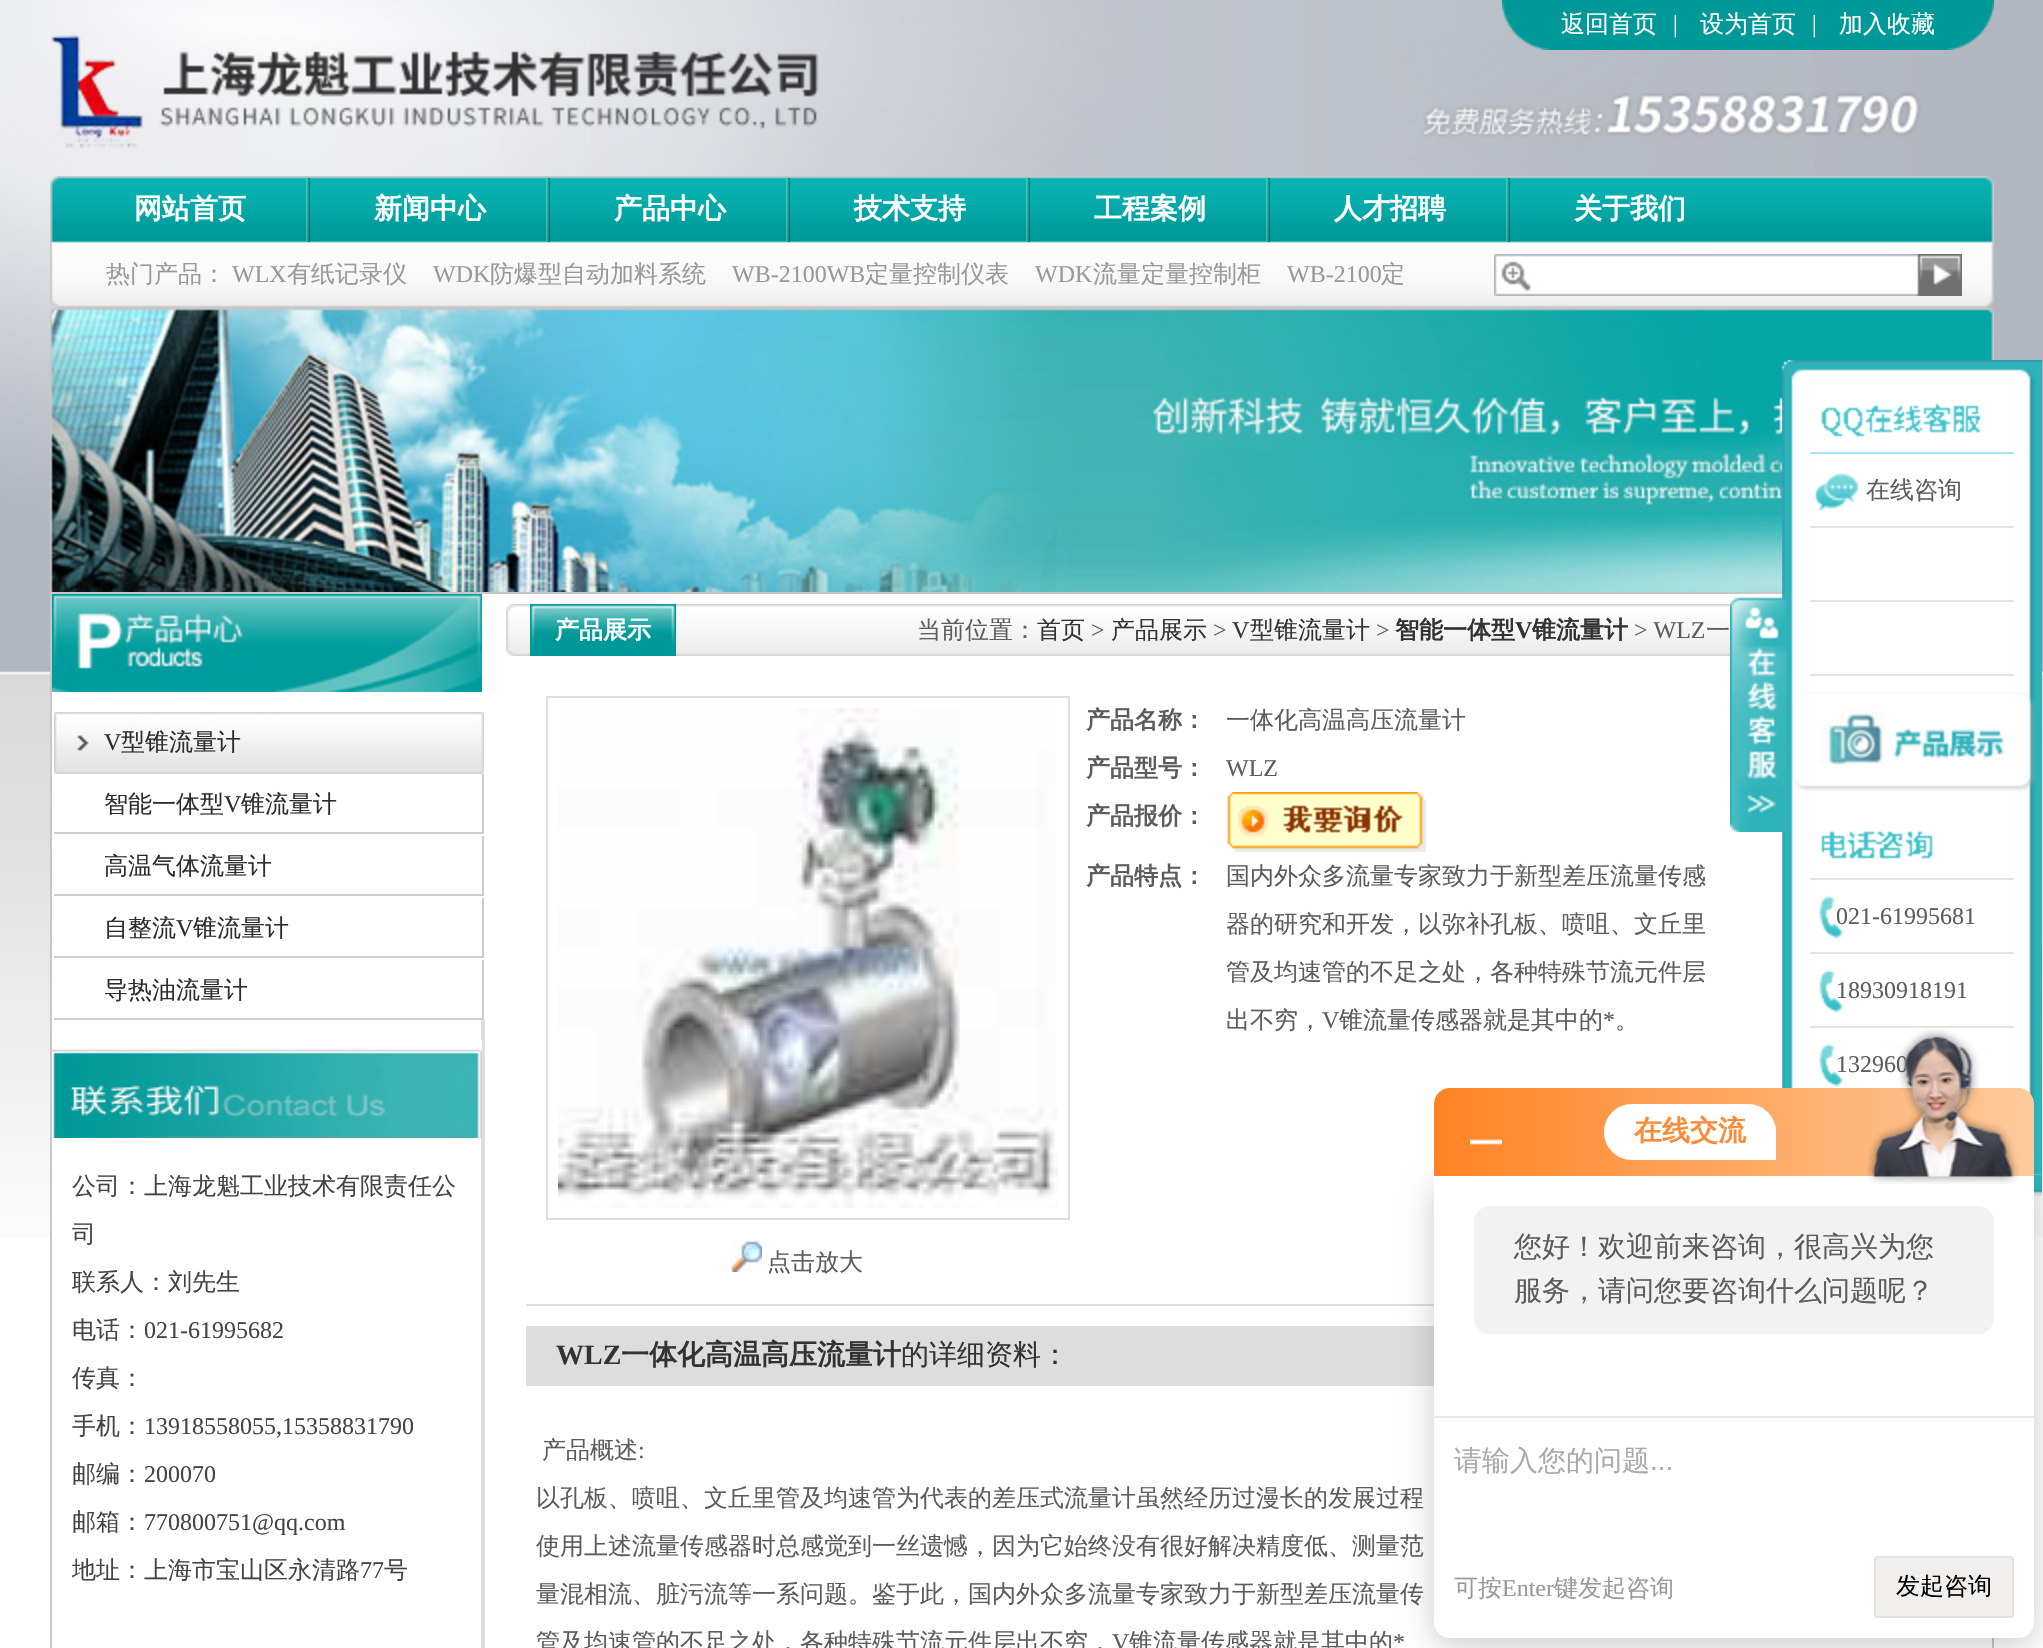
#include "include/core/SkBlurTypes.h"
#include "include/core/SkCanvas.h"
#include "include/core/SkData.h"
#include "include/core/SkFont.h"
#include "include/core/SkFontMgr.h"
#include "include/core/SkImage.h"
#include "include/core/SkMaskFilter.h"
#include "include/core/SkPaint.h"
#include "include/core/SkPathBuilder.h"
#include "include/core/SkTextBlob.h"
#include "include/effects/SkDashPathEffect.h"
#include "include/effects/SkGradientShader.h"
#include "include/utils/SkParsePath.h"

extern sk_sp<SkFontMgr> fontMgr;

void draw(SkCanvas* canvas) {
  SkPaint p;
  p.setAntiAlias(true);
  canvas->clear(SK_ColorWHITE);
  canvas->drawImageRect(SkImages::DeferredFromEncodedData(SkData::MakeFromFileName("images/1.png")), SkRect::MakeLTRB(0, 0, 2043, 1237), SkSamplingOptions());
  canvas->drawImageRect(SkImages::DeferredFromEncodedData(SkData::MakeFromFileName("images/2.png")), SkRect::MakeLTRB(51, 35, 1921, 149), SkSamplingOptions());
  canvas->drawImageRect(SkImages::DeferredFromEncodedData(SkData::MakeFromFileName("images/3.png")), SkRect::MakeLTRB(1502, 0, 1994, 50), SkSamplingOptions());
  canvas->drawImageRect(SkImages::DeferredFromEncodedData(SkData::MakeFromFileName("images/4.png")), SkRect::MakeLTRB(58, 176, 1986, 308), SkSamplingOptions());
  canvas->drawImageRect(SkImages::DeferredFromEncodedData(SkData::MakeFromFileName("images/5.png")), SkRect::MakeLTRB(50, 176, 58, 308), SkSamplingOptions());
  canvas->drawImageRect(SkImages::DeferredFromEncodedData(SkData::MakeFromFileName("images/6.png")), SkRect::MakeLTRB(306, 178, 310, 242), SkSamplingOptions());
  canvas->drawImageRect(SkImages::DeferredFromEncodedData(SkData::MakeFromFileName("images/6.png")), SkRect::MakeLTRB(546, 178, 550, 242), SkSamplingOptions());
  canvas->drawImageRect(SkImages::DeferredFromEncodedData(SkData::MakeFromFileName("images/6.png")), SkRect::MakeLTRB(786, 178, 790, 242), SkSamplingOptions());
  canvas->drawImageRect(SkImages::DeferredFromEncodedData(SkData::MakeFromFileName("images/6.png")), SkRect::MakeLTRB(1026, 178, 1030, 242), SkSamplingOptions());
  canvas->drawImageRect(SkImages::DeferredFromEncodedData(SkData::MakeFromFileName("images/6.png")), SkRect::MakeLTRB(1266, 178, 1270, 242), SkSamplingOptions());
  canvas->drawImageRect(SkImages::DeferredFromEncodedData(SkData::MakeFromFileName("images/6.png")), SkRect::MakeLTRB(1506, 178, 1510, 242), SkSamplingOptions());
  canvas->drawImageRect(SkImages::DeferredFromEncodedData(SkData::MakeFromFileName("images/7.png")), SkRect::MakeLTRB(1494, 254, 1962, 296), SkSamplingOptions());
  canvas->drawImageRect(SkImages::DeferredFromEncodedData(SkData::MakeFromFileName("images/8.png")), SkRect::MakeLTRB(1986, 176, 1994, 308), SkSamplingOptions());
  canvas->drawImageRect(SkImages::DeferredFromEncodedData(SkData::MakeFromFileName("images/9.png")), SkRect::MakeLTRB(50, 308, 1994, 592), SkSamplingOptions());
  p.setColor(SK_ColorWHITE);
  canvas->drawRect(SkRect::MakeLTRB(52, 594, 1992, 1237), p);
  p.setColor(SkColorSetRGB(223, 221, 222));
  canvas->drawRect(SkRect::MakeLTRB(481, 1020, 485, 1648), p);
  p.setStyle(SkPaint::kStroke_Style);
  p.setStrokeWidth(2);
  p.setColor(SkColorSetRGB(199, 199, 199));
  canvas->drawRect(SkRect::MakeLTRB(51, 593, 1993, 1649), p);
  canvas->drawImageRect(SkImages::DeferredFromEncodedData(SkData::MakeFromFileName("images/10.png")), SkRect::MakeLTRB(52, 594, 482, 692), SkSamplingOptions());
  canvas->drawImageRect(SkImages::DeferredFromEncodedData(SkData::MakeFromFileName("images/11.png")), SkRect::MakeLTRB(54, 712, 484, 774), SkSamplingOptions());
  p.setStyle(SkPaint::kFill_Style);
  p.setColor(SkColorSetRGB(204, 204, 204));
  canvas->drawRect(SkRect::MakeLTRB(482, 774, 484, 834), p);
  canvas->drawRect(SkRect::MakeLTRB(54, 832, 484, 834), p);
  canvas->drawRect(SkRect::MakeLTRB(482, 836, 484, 896), p);
  canvas->drawRect(SkRect::MakeLTRB(54, 894, 484, 896), p);
  canvas->drawRect(SkRect::MakeLTRB(482, 898, 484, 958), p);
  canvas->drawRect(SkRect::MakeLTRB(54, 956, 484, 958), p);
  canvas->drawRect(SkRect::MakeLTRB(482, 960, 484, 1020), p);
  canvas->drawRect(SkRect::MakeLTRB(54, 1018, 484, 1020), p);
  canvas->drawImageRect(SkImages::DeferredFromEncodedData(SkData::MakeFromFileName("images/12.png")), SkRect::MakeLTRB(52, 1040, 482, 1138), SkSamplingOptions());
  canvas->drawImageRect(SkImages::DeferredFromEncodedData(SkData::MakeFromFileName("images/13.png")), SkRect::MakeLTRB(506, 604, 1730, 656), SkSamplingOptions());
  canvas->drawImageRect(SkImages::DeferredFromEncodedData(SkData::MakeFromFileName("images/14.png")), SkRect::MakeLTRB(530, 604, 676, 656), SkSamplingOptions());
  p.setColor(SkColorSetRGB(221, 221, 221));
  canvas->drawRect(SkRect::MakeLTRB(526, 1304, 1434, 1306), p);
  canvas->drawImageRect(SkImages::DeferredFromEncodedData(SkData::MakeFromFileName("images/15.png")), SkRect::MakeLTRB(1227, 792, 1426, 852), SkSamplingOptions());
  p.setStyle(SkPaint::kStroke_Style);
  canvas->drawRect(SkRect::MakeLTRB(547, 697, 1069, 1219), p);
  canvas->drawImageRect(SkImages::DeferredFromEncodedData(SkData::MakeFromFileName("images/16.png")), SkRect::MakeLTRB(558, 708, 1058, 1208), SkSamplingOptions());
  canvas->drawImageRect(SkImages::DeferredFromEncodedData(SkData::MakeFromFileName("images/17.png")), SkRect::MakeLTRB(730, 1240, 762, 1272), SkSamplingOptions());
  p.setStyle(SkPaint::kFill_Style);
  canvas->drawRect(SkRect::MakeLTRB(526, 1326, 1434, 1386), p);
  canvas->drawImageRect(SkImages::DeferredFromEncodedData(SkData::MakeFromFileName("images/21.png")), SkRect::MakeLTRB(1782, 380, 2042, 1174), SkSamplingOptions());
  canvas->drawImageRect(SkImages::DeferredFromEncodedData(SkData::MakeFromFileName("images/18.png")), SkRect::MakeLTRB(1730, 597, 1786, 832), SkSamplingOptions());
  canvas->drawImageRect(SkImages::DeferredFromEncodedData(SkData::MakeFromFileName("images/19.png")), SkRect::MakeLTRB(2034, 1174, 2042, 1199), SkSamplingOptions());
  canvas->drawImageRect(SkImages::DeferredFromEncodedData(SkData::MakeFromFileName("images/20.png")), SkRect::MakeLTRB(1782, 360, 2042, 380), SkSamplingOptions());
  p.setColor(SkColorSetRGB(172, 229, 249));
  canvas->drawRect(SkRect::MakeLTRB(1810, 452, 2014, 454), p);
  canvas->drawImageRect(SkImages::DeferredFromEncodedData(SkData::MakeFromFileName("images/22.png")), SkRect::MakeLTRB(1821, 403, 1981, 437), SkSamplingOptions());
  p.setColor(SkColorSetRGB(230, 229, 228));
  canvas->drawRect(SkRect::MakeLTRB(1810, 526, 2014, 528), p);
  canvas->drawImageRect(SkImages::DeferredFromEncodedData(SkData::MakeFromFileName("images/23.png")), SkRect::MakeLTRB(1815, 473, 1859, 511), SkSamplingOptions());
  canvas->drawRect(SkRect::MakeLTRB(1810, 600, 2014, 602), p);
  canvas->drawRect(SkRect::MakeLTRB(1810, 674, 2014, 676), p);
  canvas->drawImageRect(SkImages::DeferredFromEncodedData(SkData::MakeFromFileName("images/24.png")), SkRect::MakeLTRB(1792, 692, 2036, 792), SkSamplingOptions());
  canvas->drawRect(SkRect::MakeLTRB(1810, 878, 2014, 880), p);
  canvas->drawImageRect(SkImages::DeferredFromEncodedData(SkData::MakeFromFileName("images/25.png")), SkRect::MakeLTRB(1821, 831, 1933, 859), SkSamplingOptions());
  canvas->drawRect(SkRect::MakeLTRB(1810, 952, 2014, 954), p);
  canvas->drawImageRect(SkImages::DeferredFromEncodedData(SkData::MakeFromFileName("images/26.png")), SkRect::MakeLTRB(1819, 895, 1843, 939), SkSamplingOptions());
  canvas->drawRect(SkRect::MakeLTRB(1810, 1026, 2014, 1028), p);
  canvas->drawImageRect(SkImages::DeferredFromEncodedData(SkData::MakeFromFileName("images/26.png")), SkRect::MakeLTRB(1819, 969, 1843, 1013), SkSamplingOptions());
  canvas->drawImageRect(SkImages::DeferredFromEncodedData(SkData::MakeFromFileName("images/26.png")), SkRect::MakeLTRB(1819, 1043, 1843, 1087), SkSamplingOptions());
  p.setColor(SkColorSetARGB(51, 0, 0, 0));
  p.setMaskFilter(SkMaskFilter::MakeBlur(kNormal_SkBlurStyle, 16));
  canvas->drawRoundRect(SkRect::MakeLTRB(1434, 1184, 2034, 1646), 16, 16, p);
  p.setMaskFilter(nullptr);
  {
    const SkColor colors[] = {SkColorSetRGB(255, 131, 36), SkColorSetRGB(254, 203, 156)};
    const float stops[] = {0, 1};
    const SkPoint ends[] = {{1434, 1132}, {2034, 1132}};
    p.setShader(SkGradientShader::MakeLinear(ends, colors, stops, 2, SkTileMode::kClamp));
    p.setAlpha(255);
  }
  canvas->drawPath(SkPathBuilder().moveTo(1450, 1088).lineTo(2018, 1088).cubicTo(2027, 1088, 2034, 1095, 2034, 1104).lineTo(2034, 1176).lineTo(1434, 1176).lineTo(1434, 1104).cubicTo(1434, 1095, 1441, 1088, 1450, 1088).close().detach(), p);
  canvas->drawImageRect(SkImages::DeferredFromEncodedData(SkData::MakeFromFileName("images/27.png")), SkRect::MakeLTRB(1470, 1139, 1502, 1145), SkSamplingOptions());
  p.setShader(nullptr);
  p.setColor(SK_ColorWHITE);
  canvas->drawPath(SkPathBuilder().moveTo(1632, 1104).lineTo(1748, 1104).cubicTo(1763.5f, 1104, 1776, 1116.5f, 1776, 1132).lineTo(1776, 1160).lineTo(1632, 1160).cubicTo(1616.5f, 1160, 1604, 1147.5f, 1604, 1132).cubicTo(1604, 1116.5f, 1616.5f, 1104, 1632, 1104).close().detach(), p);
  canvas->drawPath(SkPathBuilder().moveTo(1434, 1176).lineTo(2034, 1176).lineTo(2034, 1622).cubicTo(2034, 1631, 2027, 1638, 2018, 1638).lineTo(1450, 1638).cubicTo(1441, 1638, 1434, 1631, 1434, 1622).close().detach(), p);
  p.setColor(SkColorSetRGB(242, 242, 242));
  canvas->drawRoundRect(SkRect::MakeLTRB(1474, 1206, 1994, 1334), 16, 16, p);
  p.setColor(SkColorSetRGB(234, 234, 234));
  canvas->drawRect(SkRect::MakeLTRB(1434, 1416, 2034, 1418), p);
  p.setColor(SkColorSetRGB(240, 239, 237));
  canvas->drawRoundRect(SkRect::MakeLTRB(1875, 1557, 2013, 1617), 3, 3, p);
  p.setStyle(SkPaint::kStroke_Style);
  p.setColor(SkColorSetRGB(226, 226, 226));
  canvas->drawRoundRect(SkRect::MakeLTRB(1875, 1557, 2013, 1617), 3, 3, p);
  SkFont font1(fontMgr->matchFamilyStyle("WenQuanYi Zen Hei", SkFontStyle(500, SkFontStyle::kNormal_Width, SkFontStyle::kUpright_Slant)), 24);
  font1.setSubpixel(true);
  p.setStyle(SkPaint::kFill_Style);
  p.setColor(SK_ColorWHITE);
  canvas->drawString("返回首页", 1561, 32, font1, p);
  SkFont font2(fontMgr->matchFamilyStyle("Liberation Serif", SkFontStyle::Normal()), 24);
  font2.setSubpixel(true);
  canvas->drawString("|", 1673, 32, font2, p);
  canvas->drawString("设为首页", 1700, 32, font1, p);
  canvas->drawString("|", 1812, 32, font2, p);
  canvas->drawString("加入收藏", 1839, 32, font1, p);
  SkFont font3(fontMgr->matchFamilyStyle("WenQuanYi Zen Hei", SkFontStyle::Bold()), 28);
  font3.setSubpixel(true);
  canvas->drawString("网站首页", 134, 218, font3, p);
  canvas->drawString("新闻中心", 374, 218, font3, p);
  canvas->drawString("产品中心", 614, 218, font3, p);
  canvas->drawString("技术支持", 854, 218, font3, p);
  canvas->drawString("工程案例", 1094, 218, font3, p);
  canvas->drawString("人才招聘", 1334, 218, font3, p);
  canvas->drawString("关于我们", 1574, 218, font3, p);
  p.setColor(SkColorSetRGB(153, 153, 153));
  canvas->drawString("热门产品：", 106, 282, font1, p);
  canvas->drawString("WLX", 232, 282, font2, p);
  canvas->drawString("有纸记录仪", 287, 282, font1, p);
  canvas->drawString("WDK", 433, 282, font2, p);
  canvas->drawString("防爆型自动加料系统", 490, 282, font1, p);
  canvas->drawString("WB-2100WB", 732, 282, font2, p);
  canvas->drawString("定量控制仪表", 865, 282, font1, p);
  canvas->drawString("WDK", 1035, 282, font2, p);
  canvas->drawString("流量定量控制柜", 1093, 282, font1, p);
  canvas->drawString("WB-2100", 1287, 282, font2, p);
  canvas->drawString("定", 1381, 282, font1, p);
  p.setColor(SkColorSetRGB(45, 45, 45));
  canvas->drawString("V", 104, 750, font2, p);
  canvas->drawString("型锥流量计", 121, 750, font1, p);
  canvas->drawString("智能一体型", 104, 812, font1, p);
  canvas->drawString("V", 224, 812, font2, p);
  canvas->drawString("锥流量计", 241, 812, font1, p);
  canvas->drawString("高温气体流量计", 104, 874, font1, p);
  canvas->drawString("自整流", 104, 936, font1, p);
  canvas->drawString("V", 176, 936, font2, p);
  canvas->drawString("锥流量计", 193, 936, font1, p);
  canvas->drawString("导热油流量计", 104, 998, font1, p);
  p.setColor(SkColorSetRGB(68, 68, 68));
  canvas->drawString("公司：上海龙魁工业技术有限责任公", 72, 1194, font1, p);
  canvas->drawString("司", 72, 1242, font1, p);
  canvas->drawString("联系人：刘先生", 72, 1290, font1, p);
  canvas->drawString("电话：", 72, 1338, font1, p);
  canvas->drawString("021-61995682", 144, 1338, font2, p);
  canvas->drawString("传真：", 72, 1386, font1, p);
  canvas->drawString("手机：", 72, 1434, font1, p);
  canvas->drawString("13918558055,15358831790", 144, 1434, font2, p);
  canvas->drawString("邮编：", 72, 1482, font1, p);
  canvas->drawString("200070", 144, 1482, font2, p);
  canvas->drawString("邮箱：", 72, 1530, font1, p);
  canvas->drawString("770800751@qq.com", 144, 1530, font2, p);
  canvas->drawString("地址：上海市宝山区永清路", 72, 1578, font1, p);
  canvas->drawString("77", 360, 1578, font2, p);
  canvas->drawString("号", 384, 1578, font1, p);
  SkFont font4(fontMgr->matchFamilyStyle("WenQuanYi Zen Hei", SkFontStyle::Bold()), 24);
  font4.setSubpixel(true);
  p.setColor(SK_ColorWHITE);
  canvas->drawString("产品展示", 555, 638, font4, p);
  p.setColor(SkColorSetRGB(92, 92, 92));
  canvas->drawString("当前位置：", 917, 638, font1, p);
  p.setColor(SkColorSetRGB(51, 51, 51));
  canvas->drawString("首页", 1037, 638, font1, p);
  p.setColor(SkColorSetRGB(92, 92, 92));
  canvas->drawString(">", 1091, 638, font2, p);
  p.setColor(SkColorSetRGB(51, 51, 51));
  canvas->drawString("产品展示", 1111, 638, font1, p);
  p.setColor(SkColorSetRGB(92, 92, 92));
  canvas->drawString(">", 1213, 638, font2, p);
  p.setColor(SkColorSetRGB(51, 51, 51));
  canvas->drawString("V", 1232, 638, font2, p);
  canvas->drawString("型锥流量计", 1250, 638, font1, p);
  p.setColor(SkColorSetRGB(92, 92, 92));
  canvas->drawString(">", 1376, 638, font2, p);
  p.setColor(SkColorSetRGB(51, 51, 51));
  canvas->drawString("智能一体型", 1395, 638, font4, p);
  SkFont font5(fontMgr->matchFamilyStyle("Liberation Serif", SkFontStyle::Bold()), 24);
  font5.setSubpixel(true);
  canvas->drawString("V", 1515, 638, font5, p);
  canvas->drawString("锥流量计", 1532, 638, font4, p);
  p.setColor(SkColorSetRGB(92, 92, 92));
  canvas->drawString("> WLZ", 1634, 638, font2, p);
  canvas->drawString("一", 1706, 638, font1, p);
  canvas->drawString("产品名称：", 1086, 728, font4, p);
  canvas->drawString("一体化高温高压流量计", 1226, 728, font1, p);
  canvas->drawString("产品型号：", 1086, 776, font4, p);
  canvas->drawString("WLZ", 1226, 776, font2, p);
  canvas->drawString("产品报价：", 1086, 824, font4, p);
  canvas->drawString("产品特点：", 1086, 884, font4, p);
  canvas->drawString("国内外众多流量专家致力于新型差压流量传感", 1226, 884, font1, p);
  canvas->drawString("器的研究和开发，以弥补孔板、喷咀、文丘里", 1226, 932, font1, p);
  canvas->drawString("管及均速管的不足之处，各种特殊节流元件层", 1226, 980, font1, p);
  canvas->drawString("出不穷，", 1226, 1028, font1, p);
  canvas->drawString("V", 1322, 1028, font2, p);
  canvas->drawString("锥流量传感器就是其中的", 1339, 1028, font1, p);
  canvas->drawString("*", 1603, 1028, font2, p);
  canvas->drawString("。", 1615, 1028, font1, p);
  canvas->drawString("点击放大", 767, 1270, font1, p);
  SkFont font6(fontMgr->matchFamilyStyle("Liberation Serif", SkFontStyle::Bold()), 28);
  font6.setSubpixel(true);
  p.setColor(SkColorSetRGB(51, 51, 51));
  canvas->drawString("WLZ", 556, 1364, font6, p);
  canvas->drawString("一体化高温高压流量计", 621, 1364, font3, p);
  SkFont font7(fontMgr->matchFamilyStyle("WenQuanYi Zen Hei", SkFontStyle(500, SkFontStyle::kNormal_Width, SkFontStyle::kUpright_Slant)), 28);
  font7.setSubpixel(true);
  canvas->drawString("的详细资料：", 901, 1364, font7, p);
  p.setColor(SkColorSetRGB(92, 92, 92));
  canvas->drawString("产品概述", 542, 1458, font1, p);
  canvas->drawString(":", 638, 1458, font2, p);
  canvas->drawString("以孔板、喷咀、文丘里管及均速管为代表的差压式流量计虽然经历过漫长的发展过程", 536, 1506, font1, p);
  canvas->drawString("使用上述流量传感器时总感觉到一丝遗憾，因为它始终没有很好解决精度低、测量范", 536, 1554, font1, p);
  canvas->drawString("量混相流、脏污流等一系问题。鉴于此，国内外众多流量专家致力于新型差压流量传", 536, 1602, font1, p);
  canvas->drawString("管及均速管的不足之处，各种特殊节流元件层出不穷，", 536, 1650, font1, p);
  canvas->drawString("V", 1112, 1650, font2, p);
  canvas->drawString("锥流量传感器就是其中的", 1129, 1650, font1, p);
  canvas->drawString("*", 1393, 1650, font2, p);
  canvas->drawString("在线咨询", 1866, 498, font1, p);
  canvas->drawString("021-61995681", 1836, 924, font2, p);
  canvas->drawString("18930918191", 1836, 998, font2, p);
  canvas->drawString("132960", 1836, 1072, font2, p);
  p.setColor(SkColorSetRGB(251, 139, 54));
  canvas->drawString("在线交流", 1634, 1140, font3, p);
  canvas->drawImageRect(SkImages::DeferredFromEncodedData(SkData::MakeFromFileName("images/28.png")), SkRect::MakeLTRB(1867, 1029, 2019, 1184), SkSamplingOptions());
  p.setColor(SkColorSetRGB(92, 92, 92));
  canvas->drawString("您好！欢迎前来咨询，很高兴为您", 1514, 1256, font7, p);
  canvas->drawString("服务，请问您要咨询什么问题呢？", 1514, 1300, font7, p);
  p.setColor(SkColorSetRGB(170, 170, 170));
  canvas->drawString("请输入您的问题", 1454, 1470, font7, p);
  SkFont font8(fontMgr->matchFamilyStyle("Liberation Sans", SkFontStyle::Normal()), 28);
  font8.setSubpixel(true);
  canvas->drawString("...", 1650, 1470, font8, p);
  p.setColor(SkColorSetRGB(153, 153, 153));
  canvas->drawString("可按", 1454, 1596, font1, p);
  canvas->drawString("Enter", 1502, 1596, font2, p);
  canvas->drawString("键发起咨询", 1554, 1596, font1, p);
  p.setColor(SK_ColorBLACK);
  canvas->drawString("发起咨询", 1896, 1594, font1, p);
}
